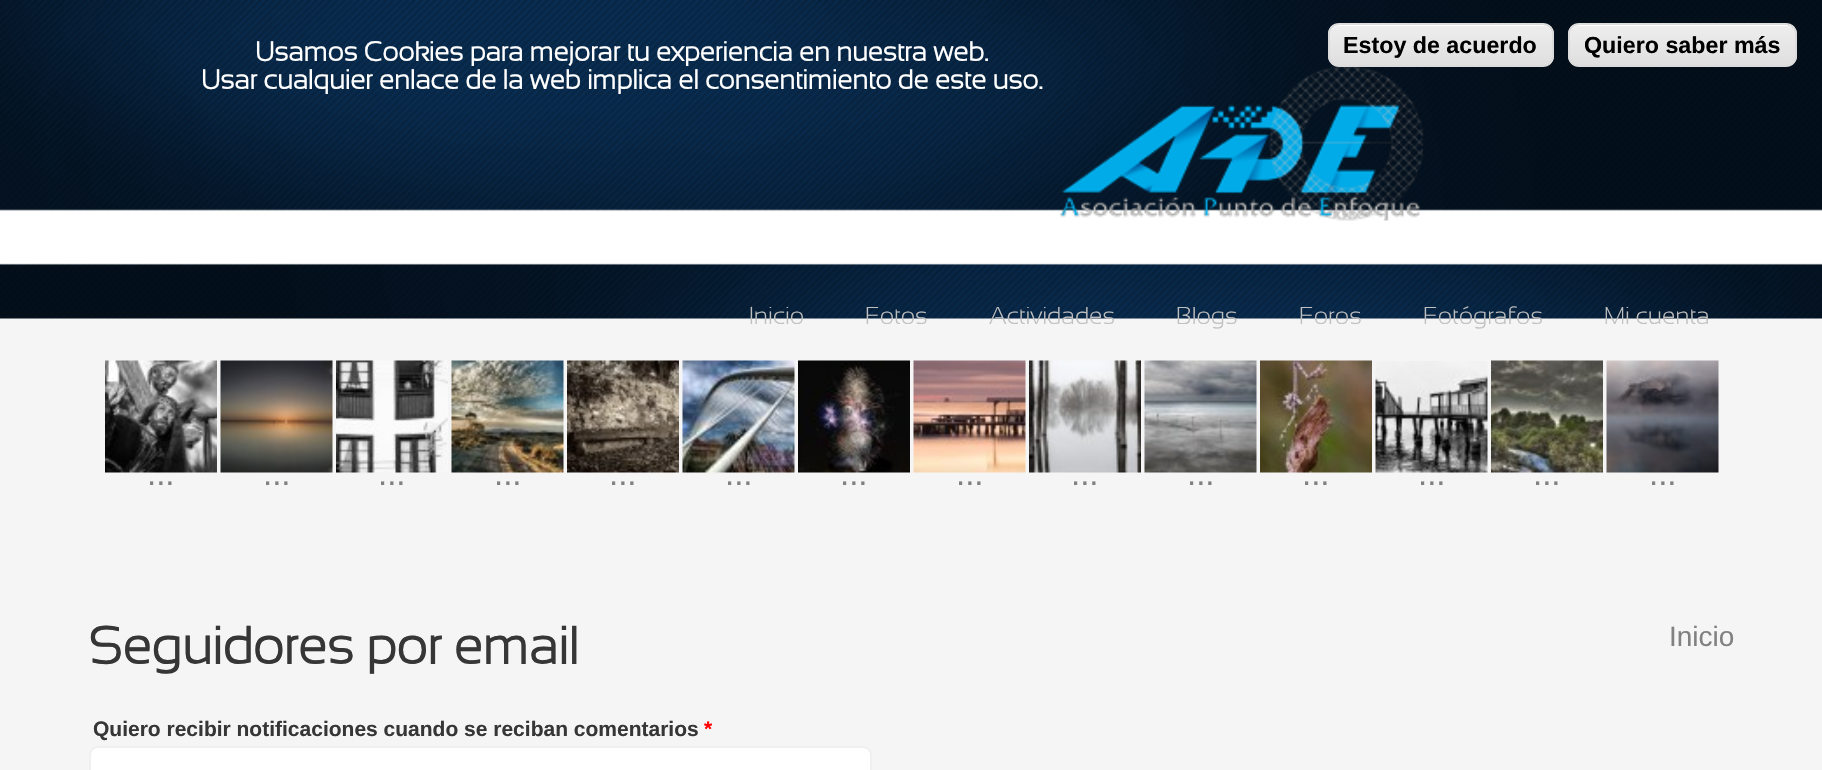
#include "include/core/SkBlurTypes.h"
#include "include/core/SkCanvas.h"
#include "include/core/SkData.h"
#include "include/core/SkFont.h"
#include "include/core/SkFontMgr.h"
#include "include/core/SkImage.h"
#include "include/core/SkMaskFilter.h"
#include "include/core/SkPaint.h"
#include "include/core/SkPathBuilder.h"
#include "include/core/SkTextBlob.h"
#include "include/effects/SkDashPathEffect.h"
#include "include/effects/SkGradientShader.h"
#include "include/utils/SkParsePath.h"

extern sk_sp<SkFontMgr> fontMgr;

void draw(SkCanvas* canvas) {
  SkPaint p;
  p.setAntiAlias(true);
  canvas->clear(SkColorSetRGB(245, 245, 245));
  canvas->drawImageRect(SkImages::DeferredFromEncodedData(SkData::MakeFromFileName("images/1.png")), SkRect::MakeLTRB(0, 0, 1822, 319), SkSamplingOptions());
  canvas->save();
  canvas->clipPath(SkPathBuilder().moveTo(1339, 23).lineTo(1543, 23).cubicTo(1549, 23, 1554, 28, 1554, 34).lineTo(1554, 56).cubicTo(1554, 62, 1549, 67, 1543, 67).lineTo(1339, 67).cubicTo(1333, 67, 1328, 62, 1328, 56).lineTo(1328, 34).cubicTo(1328, 28, 1333, 23, 1339, 23).close().detach(), true);
  {
    const SkColor colors[] = {SkColorSetRGB(237, 237, 237), SkColorSetRGB(223, 223, 223)};
    const float stops[] = {0.05f, 1};
    const SkPoint ends[] = {{1330, 25}, {1330, 65}};
    p.setShader(SkGradientShader::MakeLinear(ends, colors, stops, 2, SkTileMode::kClamp));
    p.setAlpha(255);
  }
  canvas->drawRect(SkRect::MakeLTRB(1328, 25, 1554, 65), p);
  canvas->restore();
  p.setShader(nullptr);
  p.setColor(SK_ColorWHITE);
  canvas->drawPath(SkPathBuilder().moveTo(1339, 26).lineTo(1544, 26).cubicTo(1548, 26, 1552, 30, 1552, 35).lineTo(1552, 34).cubicTo(1552, 29, 1548, 25, 1543, 25).lineTo(1339, 25).cubicTo(1334, 25, 1330, 29, 1330, 34).lineTo(1330, 35).cubicTo(1330, 30, 1334, 26, 1339, 26).close().detach(), p);
  canvas->drawImageRect(SkImages::DeferredFromEncodedData(SkData::MakeFromFileName("images/2.png")), SkRect::MakeLTRB(1060, 66, 1424, 221), SkSamplingOptions());
  p.setStyle(SkPaint::kStroke_Style);
  p.setStrokeWidth(2);
  p.setColor(SkColorSetRGB(220, 220, 220));
  canvas->drawRoundRect(SkRect::MakeLTRB(1329, 24, 1553, 66), 10, 10, p);
  canvas->save();
  canvas->clipPath(SkPathBuilder().moveTo(1579, 23).lineTo(1786, 23).cubicTo(1792, 23, 1797, 28, 1797, 34).lineTo(1797, 56).cubicTo(1797, 62, 1792, 67, 1786, 67).lineTo(1579, 67).cubicTo(1573, 67, 1568, 62, 1568, 56).lineTo(1568, 34).cubicTo(1568, 28, 1573, 23, 1579, 23).close().detach(), true);
  p.setStyle(SkPaint::kFill_Style);
  {
    const SkColor colors[] = {SkColorSetRGB(237, 237, 237), SkColorSetRGB(223, 223, 223)};
    const float stops[] = {0.05f, 1};
    const SkPoint ends[] = {{1570, 25}, {1570, 65}};
    p.setShader(SkGradientShader::MakeLinear(ends, colors, stops, 2, SkTileMode::kClamp));
    p.setAlpha(255);
  }
  canvas->drawRect(SkRect::MakeLTRB(1568, 25, 1797, 65), p);
  canvas->restore();
  p.setShader(nullptr);
  p.setColor(SK_ColorWHITE);
  canvas->drawPath(SkPathBuilder().moveTo(1578, 26).lineTo(1787, 26).cubicTo(1792, 26, 1796, 30, 1796, 35).lineTo(1796, 34).cubicTo(1796, 29, 1792, 25, 1787, 25).lineTo(1579, 25).cubicTo(1574, 25, 1570, 29, 1570, 34).lineTo(1570, 35).cubicTo(1570, 30, 1574, 26, 1578, 26).close().detach(), p);
  p.setStyle(SkPaint::kStroke_Style);
  p.setColor(SkColorSetRGB(220, 220, 220));
  canvas->drawRoundRect(SkRect::MakeLTRB(1569, 24, 1796, 66), 10, 10, p);
  canvas->drawImageRect(SkImages::DeferredFromEncodedData(SkData::MakeFromFileName("images/3.png")), SkRect::MakeLTRB(105, 360, 217, 473), SkSamplingOptions());
  canvas->drawImageRect(SkImages::DeferredFromEncodedData(SkData::MakeFromFileName("images/4.png")), SkRect::MakeLTRB(220, 360, 333, 473), SkSamplingOptions());
  canvas->drawImageRect(SkImages::DeferredFromEncodedData(SkData::MakeFromFileName("images/5.png")), SkRect::MakeLTRB(336, 360, 448, 473), SkSamplingOptions());
  canvas->drawImageRect(SkImages::DeferredFromEncodedData(SkData::MakeFromFileName("images/6.png")), SkRect::MakeLTRB(451, 360, 564, 473), SkSamplingOptions());
  canvas->drawImageRect(SkImages::DeferredFromEncodedData(SkData::MakeFromFileName("images/7.png")), SkRect::MakeLTRB(567, 360, 679, 473), SkSamplingOptions());
  canvas->drawImageRect(SkImages::DeferredFromEncodedData(SkData::MakeFromFileName("images/8.png")), SkRect::MakeLTRB(682, 360, 795, 473), SkSamplingOptions());
  canvas->drawImageRect(SkImages::DeferredFromEncodedData(SkData::MakeFromFileName("images/9.png")), SkRect::MakeLTRB(798, 360, 910, 473), SkSamplingOptions());
  canvas->drawImageRect(SkImages::DeferredFromEncodedData(SkData::MakeFromFileName("images/10.png")), SkRect::MakeLTRB(913, 360, 1026, 473), SkSamplingOptions());
  canvas->drawImageRect(SkImages::DeferredFromEncodedData(SkData::MakeFromFileName("images/11.png")), SkRect::MakeLTRB(1029, 360, 1141, 473), SkSamplingOptions());
  canvas->drawImageRect(SkImages::DeferredFromEncodedData(SkData::MakeFromFileName("images/12.png")), SkRect::MakeLTRB(1144, 360, 1257, 473), SkSamplingOptions());
  canvas->drawImageRect(SkImages::DeferredFromEncodedData(SkData::MakeFromFileName("images/13.png")), SkRect::MakeLTRB(1260, 360, 1372, 473), SkSamplingOptions());
  canvas->drawImageRect(SkImages::DeferredFromEncodedData(SkData::MakeFromFileName("images/14.png")), SkRect::MakeLTRB(1375, 361, 1488, 473), SkSamplingOptions());
  canvas->drawImageRect(SkImages::DeferredFromEncodedData(SkData::MakeFromFileName("images/15.png")), SkRect::MakeLTRB(1491, 360, 1603, 473), SkSamplingOptions());
  canvas->drawImageRect(SkImages::DeferredFromEncodedData(SkData::MakeFromFileName("images/16.png")), SkRect::MakeLTRB(1606, 360, 1719, 473), SkSamplingOptions());
  p.setStyle(SkPaint::kFill_Style);
  p.setColor(SK_ColorWHITE);
  canvas->drawRoundRect(SkRect::MakeLTRB(90, 747, 871, 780), 8, 8, p);
  p.setStyle(SkPaint::kStroke_Style);
  p.setColor(SkColorSetRGB(240, 240, 240));
  canvas->drawRoundRect(SkRect::MakeLTRB(90, 747, 871, 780), 8, 8, p);
  SkFont font1(fontMgr->matchFamilyStyle("Sansation", SkFontStyle::Bold()), 27.3f);
  font1.setSubpixel(true);
  p.setStyle(SkPaint::kFill_Style);
  p.setColor(SK_ColorWHITE);
  canvas->drawString("Usamos Cookies para mejorar tu experiencia en nuestra web.", 255, 61, font1, p);
  canvas->drawString("Usar cualquier enlace de la web implica el consentimiento de este uso.", 201, 89, font1, p);
  SkFont font2(fontMgr->matchFamilyStyle("Liberation Sans", SkFontStyle::Bold()), 23.25f);
  font2.setSubpixel(true);
  p.setColor(SK_ColorBLACK);
  canvas->drawString("Estoy de acuerdo", 1343, 53, font2, p);
  canvas->drawString("Quiero saber más", 1584, 53, font2, p);
  SkFont font3(fontMgr->matchFamilyStyle("Sansation", SkFontStyle(300, SkFontStyle::kNormal_Width, SkFontStyle::kUpright_Slant)), 24.5f);
  font3.setSubpixel(true);
  p.setColor(SkColorSetRGB(192, 192, 192));
  canvas->drawString("Inicio", 749, 324, font3, p);
  canvas->drawString("Fotos", 865, 324, font3, p);
  canvas->drawString("Actividades", 989, 324, font3, p);
  canvas->drawString("Blogs", 1176, 324, font3, p);
  canvas->drawString("Foros", 1299, 324, font3, p);
  canvas->drawString("Fotógrafos", 1423, 324, font3, p);
  canvas->drawString("Mi cuenta", 1604, 324, font3, p);
  SkFont font4(fontMgr->matchFamilyStyle("Liberation Sans", SkFontStyle::Normal()), 33);
  font4.setSubpixel(true);
  p.setColor(SkColorSetRGB(129, 129, 129));
  canvas->drawString("...", 147, 485, font4, p);
  canvas->drawString("...", 263, 485, font4, p);
  canvas->drawString("...", 378, 485, font4, p);
  canvas->drawString("...", 494, 485, font4, p);
  canvas->drawString("...", 609, 485, font4, p);
  canvas->drawString("...", 725, 485, font4, p);
  canvas->drawString("...", 840, 485, font4, p);
  canvas->drawString("...", 956, 485, font4, p);
  canvas->drawString("...", 1071, 485, font4, p);
  canvas->drawString("...", 1187, 485, font4, p);
  canvas->drawString("...", 1302, 485, font4, p);
  canvas->drawString("...", 1418, 485, font4, p);
  canvas->drawString("...", 1533, 485, font4, p);
  canvas->drawString("...", 1649, 485, font4, p);
  SkFont font5(fontMgr->matchFamilyStyle("Sansation", SkFontStyle::Bold()), 52.5f);
  font5.setSubpixel(true);
  p.setColor(SkColorSetRGB(54, 54, 54));
  canvas->drawString("Seguidores por email", 89, 664, font5, p);
  SkFont font6(fontMgr->matchFamilyStyle("Liberation Sans", SkFontStyle::Normal()), 28);
  font6.setSubpixel(true);
  p.setColor(SkColorSetRGB(129, 129, 129));
  canvas->drawString("Inicio", 1669, 646, font6, p);
  SkFont font7(fontMgr->matchFamilyStyle("Liberation Sans", SkFontStyle::Bold()), 21);
  font7.setSubpixel(true);
  p.setColor(SkColorSetRGB(54, 54, 54));
  canvas->drawString("Quiero recibir notificaciones cuando se reciban comentarios", 93, 736, font7, p);
  p.setColor(SkColorSetRGB(255, 0, 0));
  canvas->drawString("*", 704, 736, font7, p);
}
